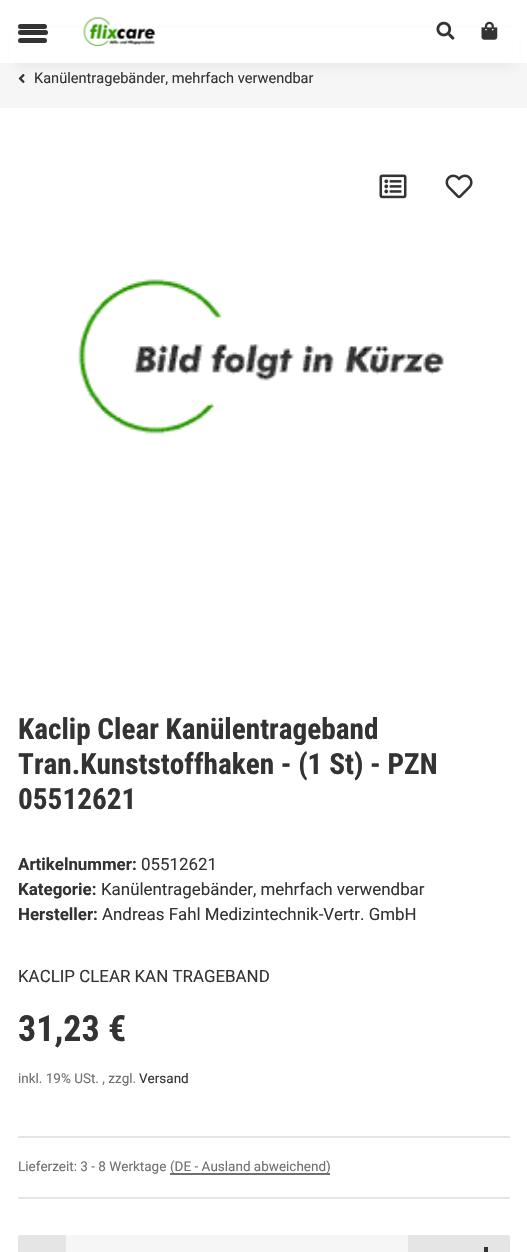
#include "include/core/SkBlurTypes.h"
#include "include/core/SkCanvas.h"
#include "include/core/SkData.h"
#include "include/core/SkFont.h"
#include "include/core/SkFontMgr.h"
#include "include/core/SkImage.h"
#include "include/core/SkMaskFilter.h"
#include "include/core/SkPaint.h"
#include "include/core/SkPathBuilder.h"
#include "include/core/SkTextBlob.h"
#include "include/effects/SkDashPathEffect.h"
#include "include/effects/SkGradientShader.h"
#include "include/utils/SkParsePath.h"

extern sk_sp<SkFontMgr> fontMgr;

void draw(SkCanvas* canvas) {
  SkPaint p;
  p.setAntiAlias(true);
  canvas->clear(SK_ColorWHITE);
  p.setColor(SkColorSetRGB(246, 246, 246));
  canvas->drawRect(SkRect::MakeLTRB(0, 63, 527, 108), p);
  canvas->drawImageRect(SkImages::DeferredFromEncodedData(SkData::MakeFromFileName("images/4.png")), SkRect::MakeLTRB(18, 74, 25, 83), SkSamplingOptions());
  p.setColor(SkColorSetARGB(15, 51, 51, 51));
  p.setMaskFilter(SkMaskFilter::MakeBlur(kNormal_SkBlurStyle, 5));
  canvas->drawRect(SkRect::MakeLTRB(14, 32, 515, 68), p);
  p.setMaskFilter(nullptr);
  p.setColor(SK_ColorWHITE);
  canvas->drawRect(SkRect::MakeLTRB(10, 28, 519, 63), p);
  p.setColor(SkColorSetRGB(51, 51, 51));
  canvas->drawRoundRect(SkRect::MakeLTRB(18, 30, 48, 35), 2.5f, 2.5f, p);
  canvas->drawRoundRect(SkRect::MakeLTRB(18, 24, 47, 29), 2.5f, 2.5f, p);
  canvas->drawRoundRect(SkRect::MakeLTRB(18, 38, 47, 43), 2.5f, 2.5f, p);
  canvas->drawImageRect(SkImages::DeferredFromEncodedData(SkData::MakeFromFileName("images/1.png")), SkRect::MakeLTRB(83, 17, 155, 46), SkSamplingOptions());
  canvas->drawImageRect(SkImages::DeferredFromEncodedData(SkData::MakeFromFileName("images/2.png")), SkRect::MakeLTRB(436, 21, 455, 40), SkSamplingOptions());
  canvas->drawImageRect(SkImages::DeferredFromEncodedData(SkData::MakeFromFileName("images/3.png")), SkRect::MakeLTRB(481, 21, 498, 40), SkSamplingOptions());
  canvas->drawImageRect(SkImages::DeferredFromEncodedData(SkData::MakeFromFileName("images/5.png")), SkRect::MakeLTRB(379, 174, 407, 199), SkSamplingOptions());
  canvas->drawImageRect(SkImages::DeferredFromEncodedData(SkData::MakeFromFileName("images/6.png")), SkRect::MakeLTRB(445, 174, 473, 199), SkSamplingOptions());
  canvas->drawImageRect(SkImages::DeferredFromEncodedData(SkData::MakeFromFileName("images/7.png")), SkRect::MakeLTRB(78, 279, 444, 434), SkSamplingOptions());
  p.setColor(SkColorSetRGB(229, 229, 229));
  canvas->drawRect(SkRect::MakeLTRB(18, 1136, 510, 1138), p);
  canvas->drawRect(SkRect::MakeLTRB(18, 1197, 510, 1199), p);
  p.setColor(SkColorSetRGB(112, 112, 112));
  canvas->drawRect(SkRect::MakeLTRB(170, 1173, 330, 1175), p);
  p.setColor(SkColorSetRGB(229, 229, 229));
  canvas->drawRoundRect(SkRect::MakeLTRB(18, 1235, 510, 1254), 2, 2, p);
  p.setColor(SkColorSetRGB(246, 246, 246));
  canvas->drawRect(SkRect::MakeLTRB(66, 1235, 408, 1252), p);
  p.setColor(SkColorSetRGB(51, 51, 51));
  canvas->drawRect(SkRect::MakeLTRB(484, 1247, 488, 1252), p);
  SkFont font1(fontMgr->matchFamilyStyle("Roboto", SkFontStyle::Normal()), 14.6f);
  font1.setSubpixel(true);
  canvas->drawString("Kanülentragebänder, mehrfach verwendbar", 34, 83, font1, p);
  SkFont font2(fontMgr->matchFamilyStyle("Roboto Condensed", SkFontStyle::Bold()), 29.25f);
  font2.setSubpixel(true);
  canvas->drawString("Kaclip Clear Kanülentrageband", 18, 739, font2, p);
  canvas->drawString("Tran.Kunststoffhaken - (1 St) - PZN", 18, 774, font2, p);
  canvas->drawString("05512621", 18, 809, font2, p);
  SkFont font3(fontMgr->matchFamilyStyle("Roboto", SkFontStyle::Bold()), 16.9f);
  font3.setSubpixel(true);
  canvas->drawString("Artikelnummer:", 18, 870, font3, p);
  SkFont font4(fontMgr->matchFamilyStyle("Roboto", SkFontStyle::Normal()), 16.9f);
  font4.setSubpixel(true);
  canvas->drawString("05512621", 141, 870, font4, p);
  canvas->drawString("Kategorie:", 18, 895, font3, p);
  canvas->drawString("Kanülentragebänder, mehrfach verwendbar", 101, 895, font4, p);
  canvas->drawString("Hersteller:", 18, 920, font3, p);
  canvas->drawString("Andreas Fahl Medizintechnik-Vertr. GmbH", 102, 920, font4, p);
  canvas->drawString("KACLIP CLEAR KAN TRAGEBAND", 18, 982, font4, p);
  SkFont font5(fontMgr->matchFamilyStyle("Roboto Condensed", SkFontStyle::Bold()), 36);
  font5.setSubpixel(true);
  canvas->drawString("31,23 €", 18, 1041, font5, p);
  SkFont font6(fontMgr->matchFamilyStyle("Roboto", SkFontStyle::Normal()), 13.5f);
  font6.setSubpixel(true);
  p.setColor(SkColorSetRGB(112, 112, 112));
  canvas->drawString("inkl. 19% USt. , zzgl.", 18, 1083, font6, p);
  p.setColor(SkColorSetRGB(51, 51, 51));
  canvas->drawString("Versand", 139, 1083, font6, p);
  p.setColor(SkColorSetRGB(112, 112, 112));
  canvas->drawString("Lieferzeit: 3 - 8 Werktage", 18, 1171, font6, p);
  canvas->drawString("(DE - Ausland abweichend)", 170, 1171, font6, p);
}
